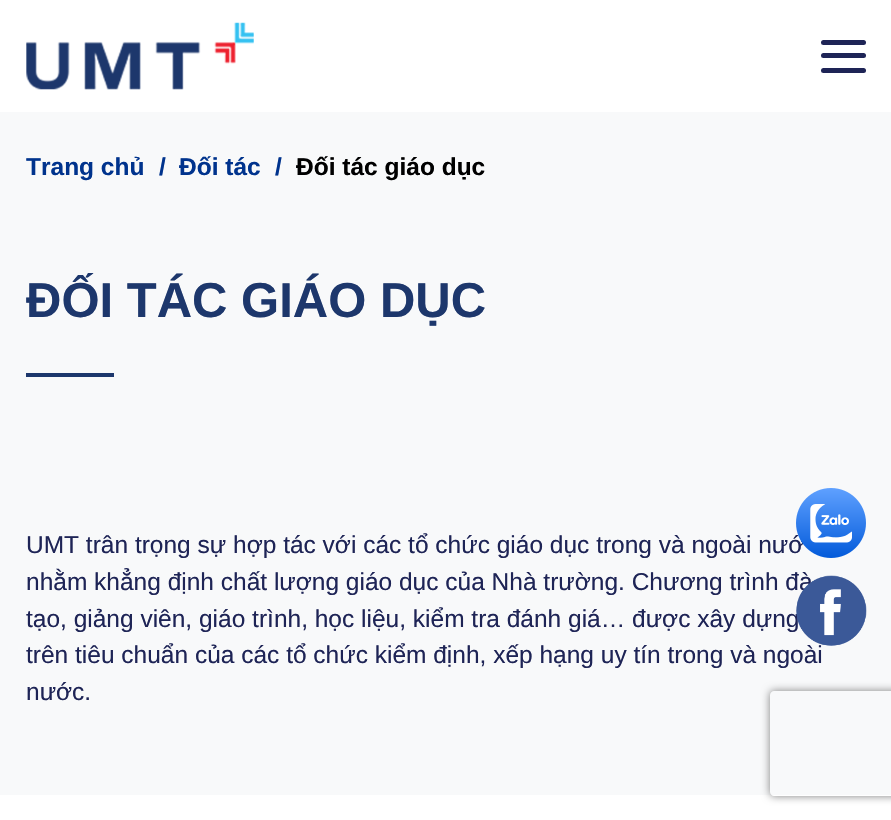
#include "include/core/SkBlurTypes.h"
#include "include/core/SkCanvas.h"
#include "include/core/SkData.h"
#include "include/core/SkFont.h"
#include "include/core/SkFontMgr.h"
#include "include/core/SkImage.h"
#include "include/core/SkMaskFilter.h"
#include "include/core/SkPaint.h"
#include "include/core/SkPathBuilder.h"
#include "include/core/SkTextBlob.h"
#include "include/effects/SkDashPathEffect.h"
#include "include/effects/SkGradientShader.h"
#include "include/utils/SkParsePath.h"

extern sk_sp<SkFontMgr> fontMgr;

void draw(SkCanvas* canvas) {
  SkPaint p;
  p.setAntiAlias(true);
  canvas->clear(SK_ColorWHITE);
  canvas->drawImageRect(SkImages::DeferredFromEncodedData(SkData::MakeFromFileName("images/1.png")), SkRect::MakeLTRB(26, 22, 254, 90), SkSamplingOptions());
  p.setColor(SkColorSetRGB(30, 36, 86));
  canvas->drawRoundRect(SkRect::MakeLTRB(821, 40, 866, 45), 2.5f, 2.5f, p);
  canvas->drawRoundRect(SkRect::MakeLTRB(821, 53, 866, 58), 2.5f, 2.5f, p);
  canvas->drawRoundRect(SkRect::MakeLTRB(821, 68, 866, 73), 2.5f, 2.5f, p);
  p.setColor(SkColorSetRGB(248, 249, 250));
  canvas->drawRect(SkRect::MakeLTRB(0, 112, 891, 795), p);
  p.setColor(SkColorSetRGB(29, 55, 108));
  canvas->drawRect(SkRect::MakeLTRB(26, 373, 114, 377), p);
  canvas->save();
  canvas->clipPath(SkPathBuilder(SkPathFillType::kEvenOdd).moveTo(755, 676).lineTo(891, 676).lineTo(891, 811).lineTo(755, 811).close().moveTo(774, 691).lineTo(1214, 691).cubicTo(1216, 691, 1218, 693, 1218, 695).lineTo(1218, 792).cubicTo(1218, 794, 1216, 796, 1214, 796).lineTo(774, 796).cubicTo(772, 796, 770, 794, 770, 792).lineTo(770, 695).cubicTo(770, 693, 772, 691, 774, 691).close().detach(), true);
  p.setColor(SkColorSetRGB(128, 128, 128));
  p.setMaskFilter(SkMaskFilter::MakeBlur(kNormal_SkBlurStyle, 4.5f));
  canvas->drawRoundRect(SkRect::MakeLTRB(770, 691, 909, 796), 4, 4, p);
  p.setMaskFilter(nullptr);
  canvas->restore();
  SkFont font1(fontMgr->matchFamilyStyle("Liberation Sans", SkFontStyle::Bold()), 24.5f);
  font1.setSubpixel(true);
  p.setColor(SkColorSetRGB(0, 51, 141));
  canvas->drawString("Trang chủ", 26, 175, font1, p);
  canvas->drawString("/", 159, 175, font1, p);
  canvas->drawString("Đối tác", 179, 175, font1, p);
  canvas->drawString("/", 275, 175, font1, p);
  p.setColor(SK_ColorBLACK);
  canvas->drawString("Đối tác giáo dục", 296, 175, font1, p);
  SkFont font2(fontMgr->matchFamilyStyle("Liberation Sans", SkFontStyle::Bold()), 49);
  font2.setSubpixel(true);
  p.setColor(SkColorSetRGB(29, 55, 108));
  canvas->drawString("ĐỐI TÁC GIÁO DỤC", 26, 317, font2, p);
  SkFont font3(fontMgr->matchFamilyStyle("Liberation Sans", SkFontStyle::Normal()), 24.5f);
  font3.setSubpixel(true);
  p.setColor(SkColorSetRGB(30, 36, 86));
  canvas->drawString("UMT trân trọng sự hợp tác với các tổ chức giáo dục trong và ngoài nướ", 26, 553, font3, p);
  canvas->drawString("nhằm khẳng định chất lượng giáo dục của Nhà trường. Chương trình đà", 26, 590, font3, p);
  canvas->drawString("tạo, giảng viên, giáo trình, học liệu, kiểm tra đánh giá… được xây dựng", 26, 627, font3, p);
  canvas->drawString("trên tiêu chuẩn của các tổ chức kiểm định, xếp hạng uy tín trong và ngoài", 26, 663, font3, p);
  canvas->drawString("nước.", 26, 700, font3, p);
  canvas->drawImageRect(SkImages::DeferredFromEncodedData(SkData::MakeFromFileName("images/2.png")), SkRect::MakeLTRB(796, 488, 866, 558), SkSamplingOptions());
  canvas->drawImageRect(SkImages::DeferredFromEncodedData(SkData::MakeFromFileName("images/3.png")), SkRect::MakeLTRB(796, 575, 867, 646), SkSamplingOptions());
}
